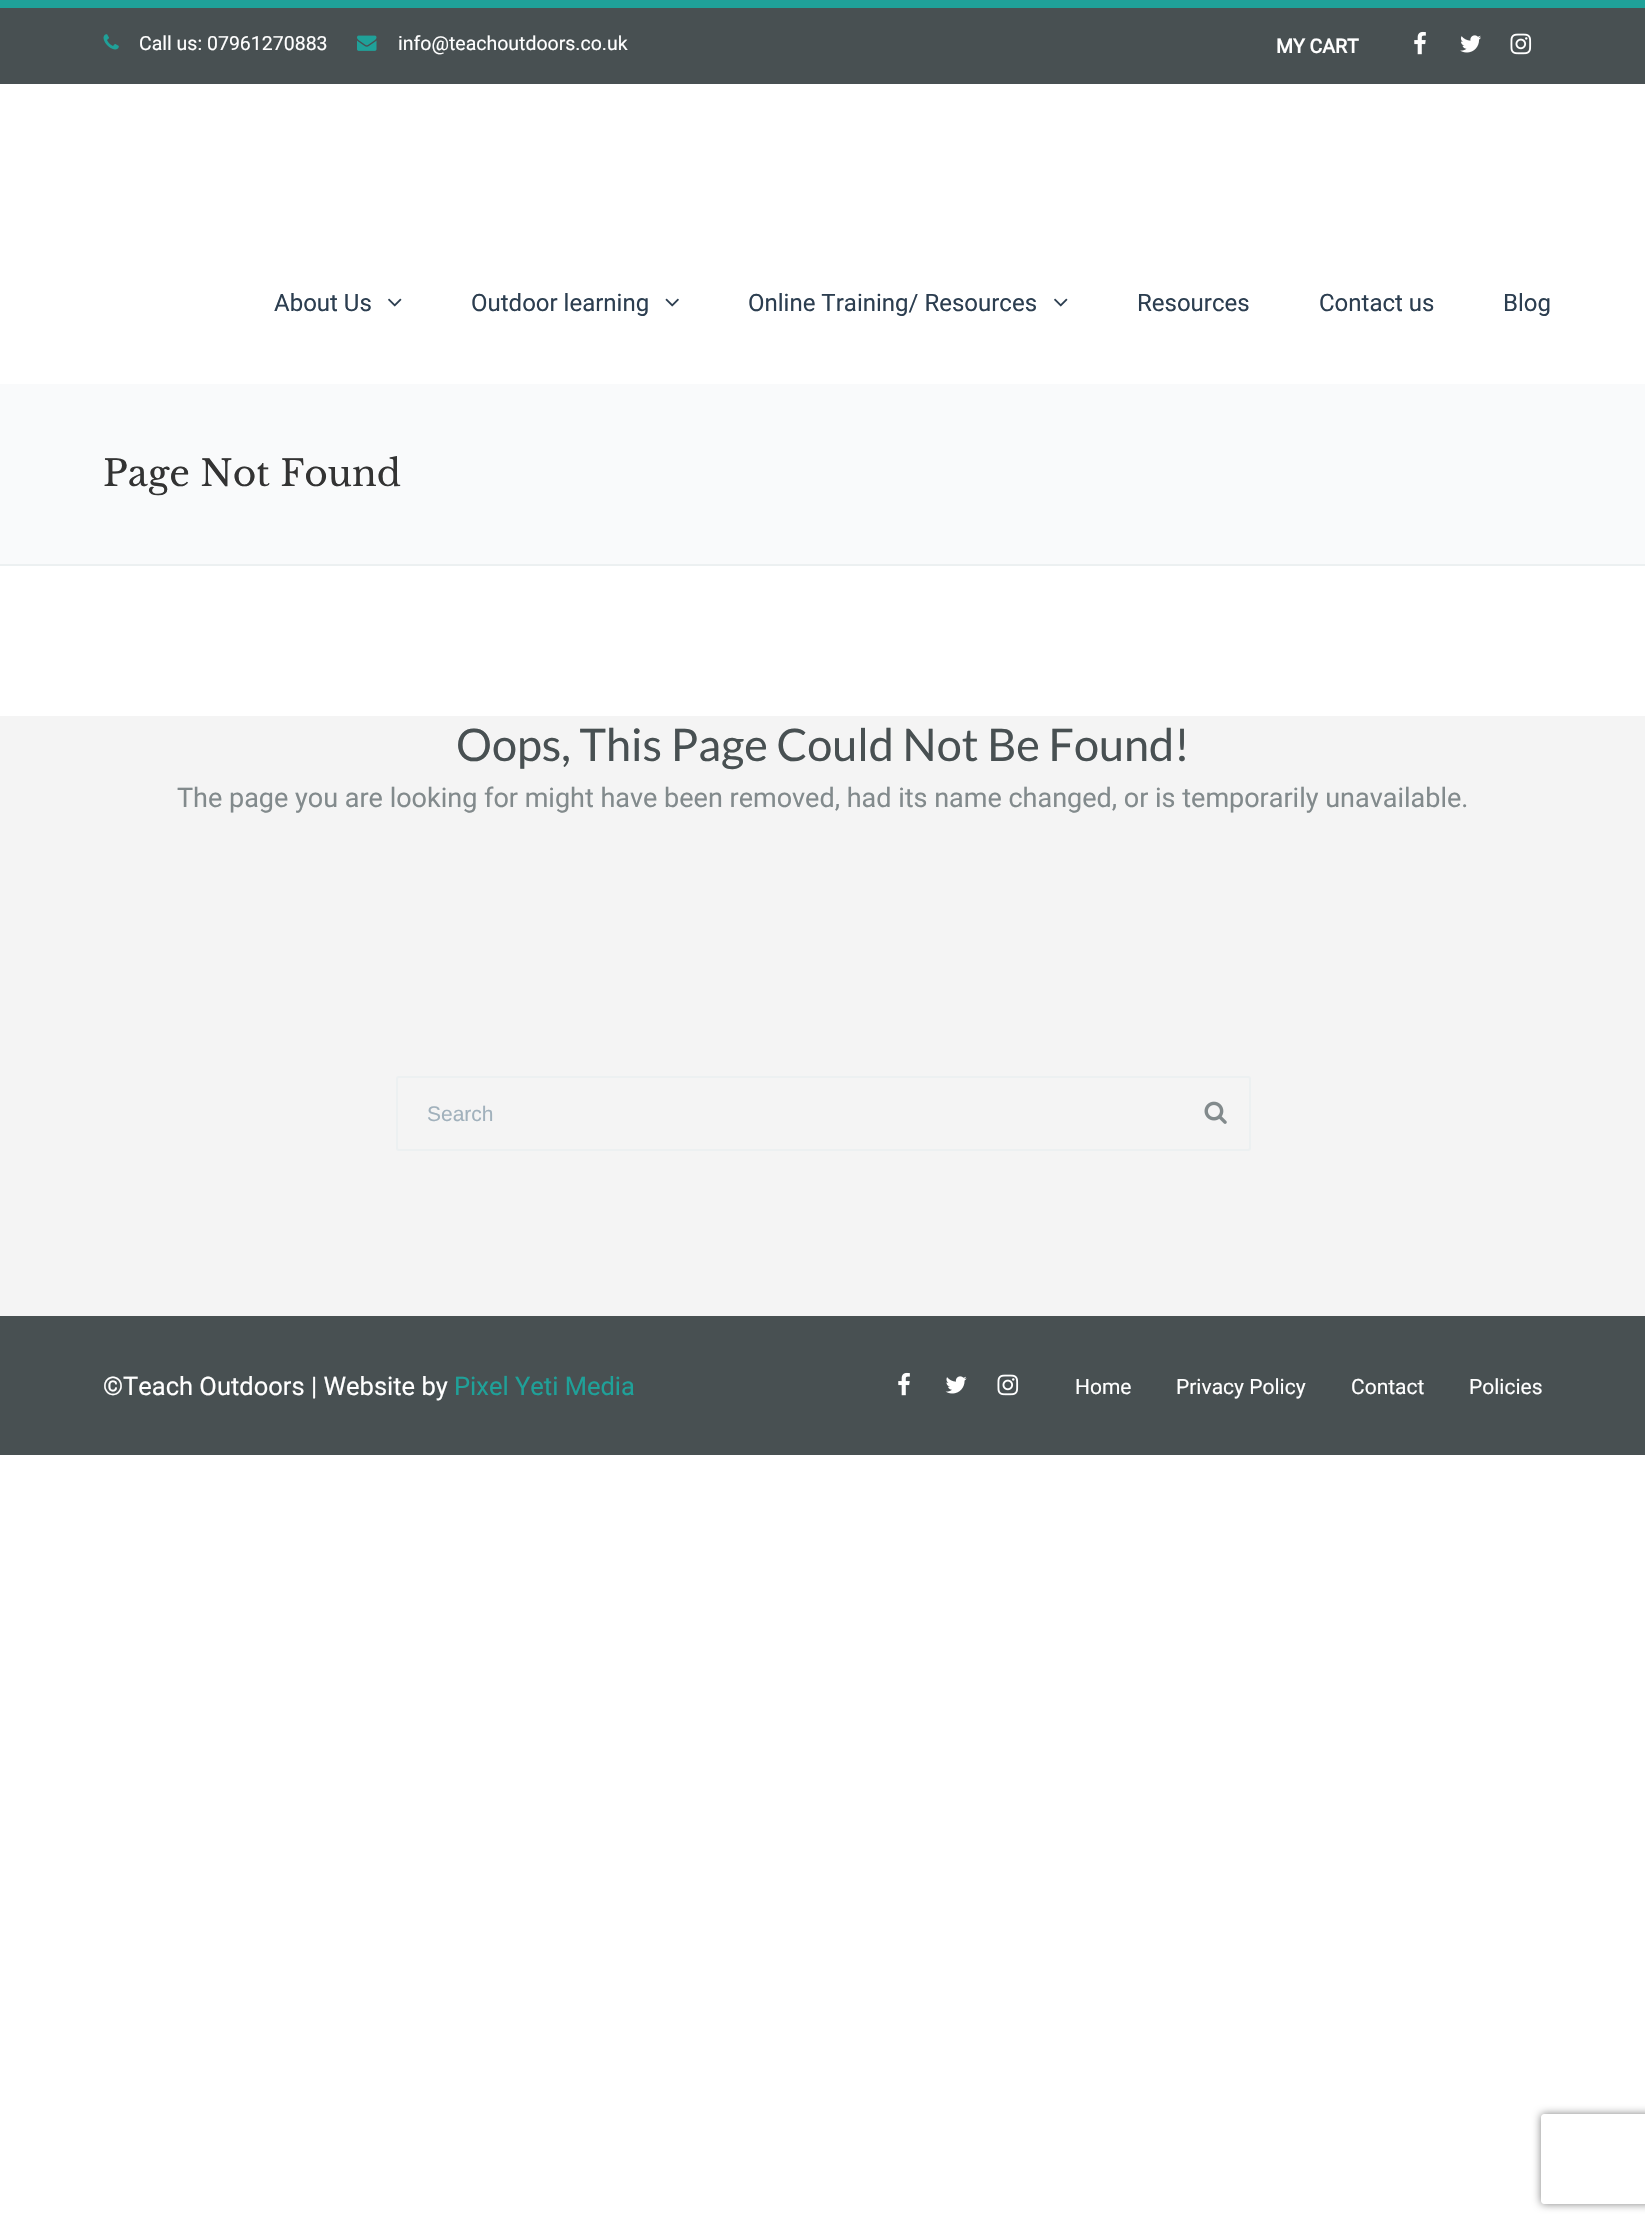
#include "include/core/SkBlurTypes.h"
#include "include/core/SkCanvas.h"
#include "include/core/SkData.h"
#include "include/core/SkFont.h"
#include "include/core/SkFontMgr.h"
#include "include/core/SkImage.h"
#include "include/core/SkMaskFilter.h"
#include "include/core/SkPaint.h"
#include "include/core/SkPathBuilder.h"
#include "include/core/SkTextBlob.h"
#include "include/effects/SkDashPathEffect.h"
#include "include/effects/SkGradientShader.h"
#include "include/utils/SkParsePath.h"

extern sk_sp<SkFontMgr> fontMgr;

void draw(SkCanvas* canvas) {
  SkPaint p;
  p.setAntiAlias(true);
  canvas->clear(SK_ColorWHITE);
  p.setColor(SkColorSetRGB(72, 80, 82));
  canvas->drawRect(SkRect::MakeLTRB(0, 8, 1645, 84), p);
  p.setColor(SkColorSetRGB(31, 161, 153));
  canvas->drawRect(SkRect::MakeLTRB(0, 0, 1645, 8), p);
  canvas->drawImageRect(SkImages::DeferredFromEncodedData(SkData::MakeFromFileName("images/1.png")), SkRect::MakeLTRB(103, 34, 119, 50), SkSamplingOptions());
  canvas->drawImageRect(SkImages::DeferredFromEncodedData(SkData::MakeFromFileName("images/2.png")), SkRect::MakeLTRB(357, 35, 377, 51), SkSamplingOptions());
  canvas->drawImageRect(SkImages::DeferredFromEncodedData(SkData::MakeFromFileName("images/3.png")), SkRect::MakeLTRB(1414, 31, 1426, 55), SkSamplingOptions());
  canvas->drawImageRect(SkImages::DeferredFromEncodedData(SkData::MakeFromFileName("images/4.png")), SkRect::MakeLTRB(1460, 35, 1481, 53), SkSamplingOptions());
  canvas->drawImageRect(SkImages::DeferredFromEncodedData(SkData::MakeFromFileName("images/5.png")), SkRect::MakeLTRB(1510, 33, 1532, 55), SkSamplingOptions());
  canvas->drawImageRect(SkImages::DeferredFromEncodedData(SkData::MakeFromFileName("images/6.png")), SkRect::MakeLTRB(388, 298, 402, 307), SkSamplingOptions());
  canvas->drawImageRect(SkImages::DeferredFromEncodedData(SkData::MakeFromFileName("images/7.png")), SkRect::MakeLTRB(665, 298, 679, 307), SkSamplingOptions());
  canvas->drawImageRect(SkImages::DeferredFromEncodedData(SkData::MakeFromFileName("images/6.png")), SkRect::MakeLTRB(1054, 298, 1068, 307), SkSamplingOptions());
  p.setColor(SkColorSetRGB(249, 250, 251));
  canvas->drawRect(SkRect::MakeLTRB(0, 384, 1645, 564), p);
  p.setColor(SkColorSetRGB(236, 240, 241));
  canvas->drawRect(SkRect::MakeLTRB(0, 564, 1645, 566), p);
  p.setColor(SkColorSetRGB(244, 244, 244));
  canvas->drawRect(SkRect::MakeLTRB(0, 716, 1645, 1316), p);
  p.setStyle(SkPaint::kStroke_Style);
  p.setStrokeWidth(2);
  p.setColor(SkColorSetRGB(236, 240, 241));
  canvas->drawRoundRect(SkRect::MakeLTRB(397, 1077, 1250, 1150), 2, 2, p);
  canvas->drawImageRect(SkImages::DeferredFromEncodedData(SkData::MakeFromFileName("images/8.png")), SkRect::MakeLTRB(1204, 1101, 1227, 1124), SkSamplingOptions());
  p.setStyle(SkPaint::kFill_Style);
  p.setColor(SkColorSetRGB(72, 80, 82));
  canvas->drawRect(SkRect::MakeLTRB(0, 1316, 1645, 1455), p);
  canvas->drawImageRect(SkImages::DeferredFromEncodedData(SkData::MakeFromFileName("images/3.png")), SkRect::MakeLTRB(898, 1372, 910, 1396), SkSamplingOptions());
  canvas->drawImageRect(SkImages::DeferredFromEncodedData(SkData::MakeFromFileName("images/9.png")), SkRect::MakeLTRB(945, 1376, 967, 1394), SkSamplingOptions());
  canvas->drawImageRect(SkImages::DeferredFromEncodedData(SkData::MakeFromFileName("images/5.png")), SkRect::MakeLTRB(997, 1374, 1019, 1396), SkSamplingOptions());
  canvas->save();
  canvas->clipPath(SkPathBuilder(SkPathFillType::kEvenOdd).moveTo(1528, 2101).lineTo(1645, 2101).lineTo(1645, 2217).lineTo(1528, 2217).close().moveTo(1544, 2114).lineTo(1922, 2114).cubicTo(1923.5f, 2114, 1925, 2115.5f, 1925, 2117).lineTo(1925, 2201).cubicTo(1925, 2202.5f, 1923.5f, 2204, 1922, 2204).lineTo(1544, 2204).cubicTo(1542.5f, 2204, 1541, 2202.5f, 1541, 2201).lineTo(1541, 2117).cubicTo(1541, 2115.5f, 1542.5f, 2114, 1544, 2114).close().detach(), true);
  p.setColor(SkColorSetRGB(128, 128, 128));
  p.setMaskFilter(SkMaskFilter::MakeBlur(kNormal_SkBlurStyle, 4));
  canvas->drawRoundRect(SkRect::MakeLTRB(1541, 2114, 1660, 2204), 3, 3, p);
  p.setMaskFilter(nullptr);
  canvas->restore();
  SkFont font1(fontMgr->matchFamilyStyle("Roboto", SkFontStyle::Normal()), 19.5f);
  font1.setSubpixel(true);
  p.setColor(SK_ColorWHITE);
  canvas->drawString("Call us: 07961270883", 139, 50, font1, p);
  canvas->drawString("info@teachoutdoors.co.uk", 398, 50, font1, p);
  SkFont font2(fontMgr->matchFamilyStyle("Roboto", SkFontStyle::Bold()), 19.5f);
  font2.setSubpixel(true);
  canvas->drawString("MY CART", 1276, 53, font2, p);
  SkFont font3(fontMgr->matchFamilyStyle("Roboto", SkFontStyle::Normal()), 24);
  font3.setSubpixel(true);
  p.setColor(SkColorSetRGB(44, 62, 80));
  canvas->drawString("About Us", 274, 311, font3, p);
  canvas->drawString("Outdoor learning", 471, 311, font3, p);
  canvas->drawString("Online Training/ Resources", 748, 311, font3, p);
  canvas->drawString("Resources", 1137, 311, font3, p);
  canvas->drawString("Contact us", 1319, 311, font3, p);
  canvas->drawString("Blog", 1503, 311, font3, p);
  SkFont font4(fontMgr->matchFamilyStyle("Libre Baskerville", SkFontStyle::Normal()), 36);
  font4.setSubpixel(true);
  p.setColor(SkColorSetRGB(51, 51, 51));
  canvas->drawString("Page Not Found", 103, 486, font4, p);
  SkFont font5(fontMgr->matchFamilyStyle("Lato", SkFontStyle::Normal()), 45);
  font5.setSubpixel(true);
  p.setColor(SkColorSetRGB(72, 80, 82));
  canvas->drawString("Oops, This Page Could Not Be Found!", 456, 761, font5, p);
  SkFont font6(fontMgr->matchFamilyStyle("Roboto", SkFontStyle::Normal()), 27);
  font6.setSubpixel(true);
  p.setColor(SkColorSetRGB(130, 138, 140));
  canvas->drawString("The page you are looking for might have been removed, had its name changed, or is temporarily unavailable.", 177, 807, font6, p);
  SkFont font7(fontMgr->matchFamilyStyle("Liberation Sans", SkFontStyle::Normal()), 21);
  font7.setSubpixel(true);
  p.setColor(SkColorSetRGB(161, 177, 188));
  canvas->drawString("Search", 427, 1121, font7, p);
  SkFont font8(fontMgr->matchFamilyStyle("Roboto", SkFontStyle::Normal()), 25.5f);
  font8.setSubpixel(true);
  p.setColor(SK_ColorWHITE);
  canvas->drawString("©Teach Outdoors | Website by", 103, 1395, font8, p);
  p.setColor(SkColorSetRGB(31, 161, 153));
  canvas->drawString("Pixel Yeti Media", 454, 1395, font8, p);
  SkFont font9(fontMgr->matchFamilyStyle("Roboto", SkFontStyle::Normal()), 21);
  font9.setSubpixel(true);
  p.setColor(SK_ColorWHITE);
  canvas->drawString("Home", 1075, 1394, font9, p);
  canvas->drawString("Privacy Policy", 1176, 1394, font9, p);
  canvas->drawString("Contact", 1351, 1394, font9, p);
  canvas->drawString("Policies", 1469, 1394, font9, p);
}
